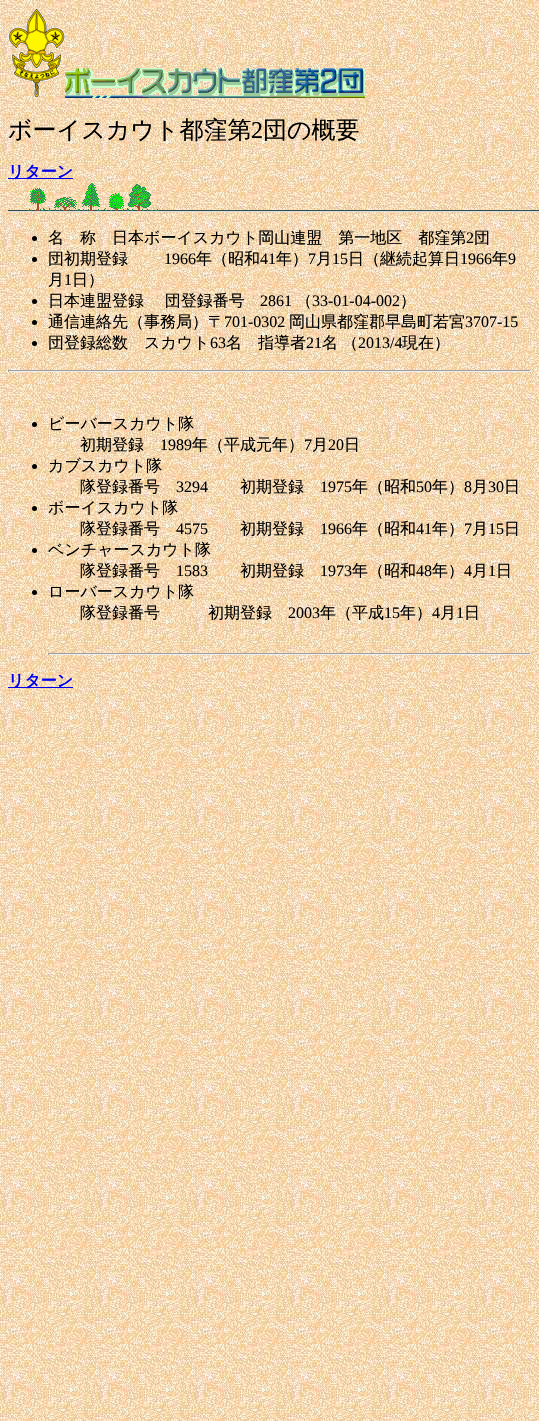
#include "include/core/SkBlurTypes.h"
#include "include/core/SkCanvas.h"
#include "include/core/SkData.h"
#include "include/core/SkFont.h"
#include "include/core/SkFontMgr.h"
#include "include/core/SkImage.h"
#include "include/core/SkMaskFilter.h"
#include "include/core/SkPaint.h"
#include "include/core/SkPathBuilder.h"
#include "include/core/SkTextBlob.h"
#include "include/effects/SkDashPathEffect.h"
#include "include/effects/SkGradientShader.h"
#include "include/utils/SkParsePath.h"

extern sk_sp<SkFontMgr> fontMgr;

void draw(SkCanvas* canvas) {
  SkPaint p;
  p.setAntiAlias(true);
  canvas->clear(SK_ColorWHITE);
  canvas->drawImageRect(SkImages::DeferredFromEncodedData(SkData::MakeFromFileName("images/1.png")), SkRect::MakeLTRB(0, 0, 539, 1421), SkSamplingOptions());
  canvas->drawImageRect(SkImages::DeferredFromEncodedData(SkData::MakeFromFileName("images/2.png")), SkRect::MakeLTRB(8, 8, 65, 98), SkSamplingOptions());
  canvas->drawImageRect(SkImages::DeferredFromEncodedData(SkData::MakeFromFileName("images/3.png")), SkRect::MakeLTRB(65, 68, 365, 98), SkSamplingOptions());
  p.setColor(SkColorSetRGB(0, 0, 238));
  canvas->drawRect(SkRect::MakeLTRB(8, 178, 73, 179), p);
  canvas->drawImageRect(SkImages::DeferredFromEncodedData(SkData::MakeFromFileName("images/4.png")), SkRect::MakeLTRB(8, 183, 539, 212), SkSamplingOptions());
  p.setColor(SK_ColorBLACK);
  canvas->drawCircle(34.5f, 238.5f, 2.5f, p);
  canvas->drawCircle(34.5f, 259.5f, 2.5f, p);
  canvas->drawCircle(34.5f, 301.5f, 2.5f, p);
  canvas->drawCircle(34.5f, 322.5f, 2.5f, p);
  canvas->drawCircle(34.5f, 343.5f, 2.5f, p);
  p.setColor(SkColorSetRGB(159, 159, 159));
  canvas->drawRect(SkRect::MakeLTRB(8, 370, 531, 371), p);
  p.setColor(SkColorSetRGB(238, 238, 238));
  canvas->drawRect(SkRect::MakeLTRB(530, 370, 531, 372), p);
  canvas->drawRect(SkRect::MakeLTRB(8, 371, 531, 372), p);
  p.setColor(SkColorSetRGB(159, 159, 159));
  canvas->drawRect(SkRect::MakeLTRB(8, 370, 9, 372), p);
  p.setColor(SK_ColorBLACK);
  canvas->drawCircle(34.5f, 424.5f, 2.5f, p);
  canvas->drawCircle(34.5f, 466.5f, 2.5f, p);
  canvas->drawCircle(34.5f, 508.5f, 2.5f, p);
  canvas->drawCircle(34.5f, 550.5f, 2.5f, p);
  canvas->drawCircle(34.5f, 592.5f, 2.5f, p);
  p.setColor(SkColorSetRGB(159, 159, 159));
  canvas->drawRect(SkRect::MakeLTRB(48, 653, 531, 654), p);
  p.setColor(SkColorSetRGB(238, 238, 238));
  canvas->drawRect(SkRect::MakeLTRB(530, 653, 531, 655), p);
  canvas->drawRect(SkRect::MakeLTRB(48, 654, 531, 655), p);
  p.setColor(SkColorSetRGB(159, 159, 159));
  canvas->drawRect(SkRect::MakeLTRB(48, 653, 49, 655), p);
  p.setColor(SkColorSetRGB(0, 0, 238));
  canvas->drawRect(SkRect::MakeLTRB(8, 687, 73, 688), p);
  SkFont font1(fontMgr->matchFamilyStyle("WenQuanYi Zen Hei", SkFontStyle(500, SkFontStyle::kNormal_Width, SkFontStyle::kUpright_Slant)), 24);
  font1.setSubpixel(true);
  p.setColor(SK_ColorBLACK);
  canvas->drawString("ボーイスカウト都窪第", 8, 138, font1, p);
  SkFont font2(fontMgr->matchFamilyStyle("Liberation Serif", SkFontStyle::Normal()), 24);
  font2.setSubpixel(true);
  canvas->drawString("2", 251, 138, font2, p);
  canvas->drawString("団の概要", 263, 138, font1, p);
  SkFont font3(fontMgr->matchFamilyStyle("WenQuanYi Zen Hei", SkFontStyle::Bold()), 16);
  font3.setSubpixel(true);
  p.setColor(SkColorSetRGB(0, 0, 238));
  canvas->drawString("リターン", 8, 177, font3, p);
  SkFont font4(fontMgr->matchFamilyStyle("WenQuanYi Zen Hei", SkFontStyle(500, SkFontStyle::kNormal_Width, SkFontStyle::kUpright_Slant)), 16);
  font4.setSubpixel(true);
  p.setColor(SK_ColorBLACK);
  canvas->drawString("名　称　日本ボーイスカウト岡山連盟　第一地区　都窪第", 48, 243, font4, p);
  SkFont font5(fontMgr->matchFamilyStyle("Liberation Serif", SkFontStyle::Normal()), 16);
  font5.setSubpixel(true);
  canvas->drawString("2", 466, 243, font5, p);
  canvas->drawString("団", 474, 243, font4, p);
  canvas->drawString("団初期登録", 48, 264, font4, p);
  canvas->drawString("1966", 164, 264, font5, p);
  canvas->drawString("年（昭和", 196, 264, font4, p);
  canvas->drawString("41", 260, 264, font5, p);
  canvas->drawString("年）", 276, 264, font4, p);
  canvas->drawString("7", 308, 264, font5, p);
  canvas->drawString("月", 316, 264, font4, p);
  canvas->drawString("15", 332, 264, font5, p);
  canvas->drawString("日（継続起算日", 348, 264, font4, p);
  canvas->drawString("1966", 460, 264, font5, p);
  canvas->drawString("年", 492, 264, font4, p);
  canvas->drawString("9", 508, 264, font5, p);
  canvas->drawString("月", 48, 285, font4, p);
  canvas->drawString("1", 64, 285, font5, p);
  canvas->drawString("日）", 72, 285, font4, p);
  canvas->drawString("日本連盟登録　 団登録番号", 48, 306, font4, p);
  canvas->drawString("2861", 260, 306, font5, p);
  canvas->drawString("（", 296, 306, font4, p);
  canvas->drawString("33-01-04-002", 312, 306, font5, p);
  canvas->drawString("）", 400, 306, font4, p);
  canvas->drawString("通信連絡先（事務局）〒", 48, 327, font4, p);
  canvas->drawString("701-0302", 224, 327, font5, p);
  canvas->drawString("岡山県都窪郡早島町若宮", 289, 327, font4, p);
  canvas->drawString("3707-15", 465, 327, font5, p);
  canvas->drawString("団登録総数　スカウト", 48, 348, font4, p);
  canvas->drawString("63", 210, 348, font5, p);
  canvas->drawString("名　指導者", 226, 348, font4, p);
  canvas->drawString("21", 306, 348, font5, p);
  canvas->drawString("名", 322, 348, font4, p);
  canvas->drawString("（", 342, 348, font4, p);
  canvas->drawString("2013/4", 358, 348, font5, p);
  canvas->drawString("現在）", 402, 348, font4, p);
  canvas->drawString("ビーバースカウト隊", 48, 429, font4, p);
  canvas->drawString("初期登録", 80, 450, font4, p);
  canvas->drawString("1989", 160, 450, font5, p);
  canvas->drawString("年（平成元年）", 192, 450, font4, p);
  canvas->drawString("7", 304, 450, font5, p);
  canvas->drawString("月", 312, 450, font4, p);
  canvas->drawString("20", 328, 450, font5, p);
  canvas->drawString("日", 344, 450, font4, p);
  canvas->drawString("カブスカウト隊", 48, 471, font4, p);
  canvas->drawString("隊登録番号", 80, 492, font4, p);
  canvas->drawString("3294", 176, 492, font5, p);
  canvas->drawString("初期登録", 240, 492, font4, p);
  canvas->drawString("1975", 320, 492, font5, p);
  canvas->drawString("年（昭和", 352, 492, font4, p);
  canvas->drawString("50", 416, 492, font5, p);
  canvas->drawString("年）", 432, 492, font4, p);
  canvas->drawString("8", 464, 492, font5, p);
  canvas->drawString("月", 472, 492, font4, p);
  canvas->drawString("30", 488, 492, font5, p);
  canvas->drawString("日", 504, 492, font4, p);
  canvas->drawString("ボーイスカウト隊", 48, 513, font4, p);
  canvas->drawString("隊登録番号", 80, 534, font4, p);
  canvas->drawString("4575", 176, 534, font5, p);
  canvas->drawString("初期登録", 240, 534, font4, p);
  canvas->drawString("1966", 320, 534, font5, p);
  canvas->drawString("年（昭和", 352, 534, font4, p);
  canvas->drawString("41", 416, 534, font5, p);
  canvas->drawString("年）", 432, 534, font4, p);
  canvas->drawString("7", 464, 534, font5, p);
  canvas->drawString("月", 472, 534, font4, p);
  canvas->drawString("15", 488, 534, font5, p);
  canvas->drawString("日", 504, 534, font4, p);
  canvas->drawString("ベンチャースカウト隊", 48, 555, font4, p);
  canvas->drawString("隊登録番号", 80, 576, font4, p);
  canvas->drawString("1583", 176, 576, font5, p);
  canvas->drawString("初期登録", 240, 576, font4, p);
  canvas->drawString("1973", 320, 576, font5, p);
  canvas->drawString("年（昭和", 352, 576, font4, p);
  canvas->drawString("48", 416, 576, font5, p);
  canvas->drawString("年）", 432, 576, font4, p);
  canvas->drawString("4", 464, 576, font5, p);
  canvas->drawString("月", 472, 576, font4, p);
  canvas->drawString("1", 488, 576, font5, p);
  canvas->drawString("日", 496, 576, font4, p);
  canvas->drawString("ローバースカウト隊", 48, 597, font4, p);
  canvas->drawString("隊登録番号　　　初期登録", 80, 618, font4, p);
  canvas->drawString("2003", 288, 618, font5, p);
  canvas->drawString("年（平成", 320, 618, font4, p);
  canvas->drawString("15", 384, 618, font5, p);
  canvas->drawString("年）", 400, 618, font4, p);
  canvas->drawString("4", 432, 618, font5, p);
  canvas->drawString("月", 440, 618, font4, p);
  canvas->drawString("1", 456, 618, font5, p);
  canvas->drawString("日", 464, 618, font4, p);
  p.setColor(SkColorSetRGB(0, 0, 238));
  canvas->drawString("リターン", 8, 686, font3, p);
}
